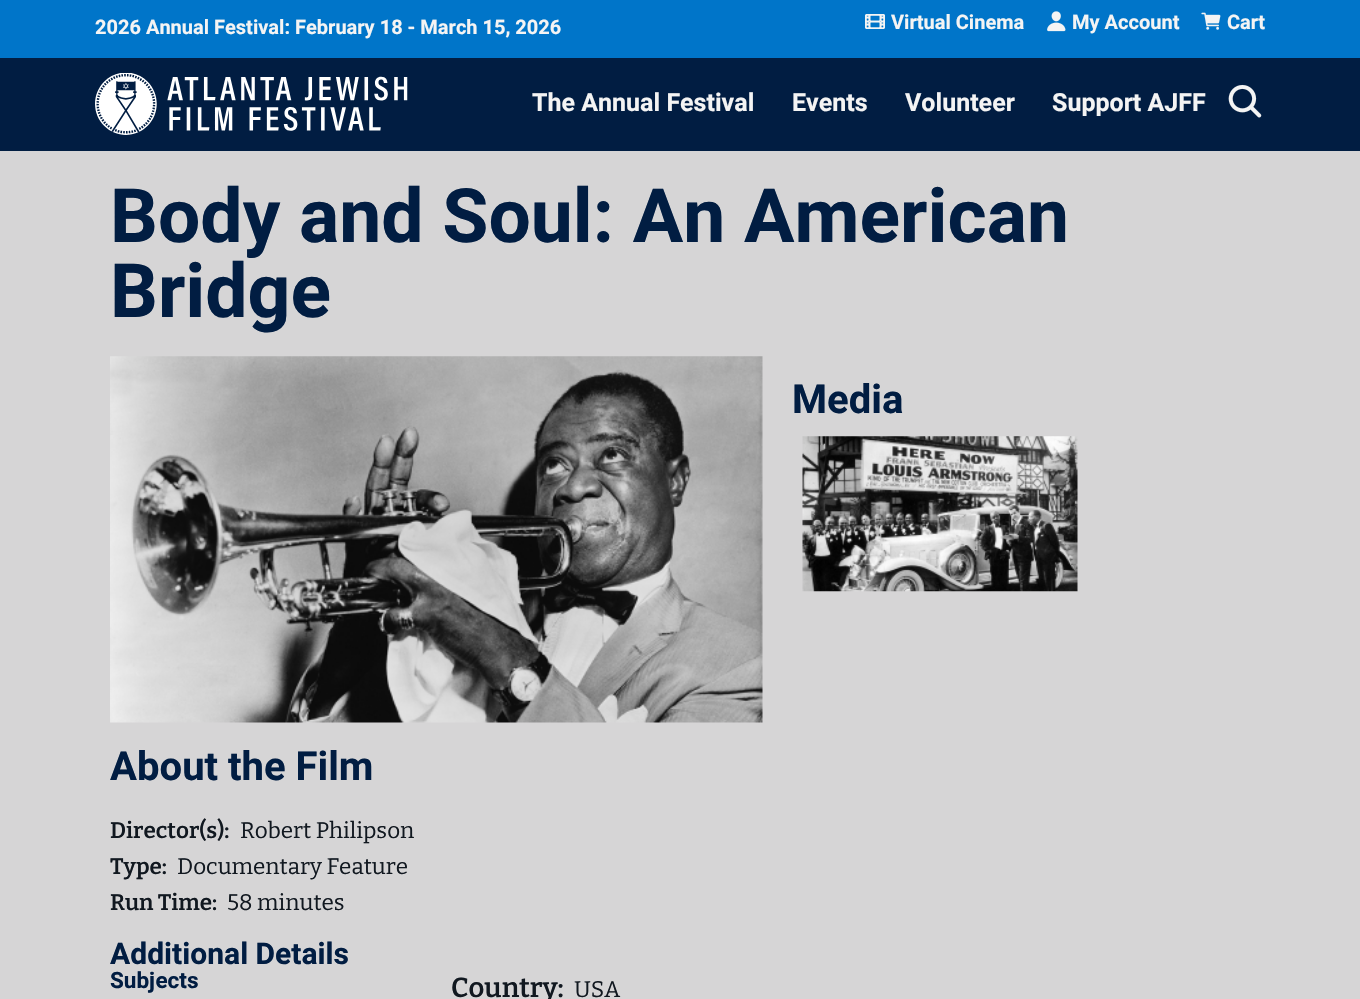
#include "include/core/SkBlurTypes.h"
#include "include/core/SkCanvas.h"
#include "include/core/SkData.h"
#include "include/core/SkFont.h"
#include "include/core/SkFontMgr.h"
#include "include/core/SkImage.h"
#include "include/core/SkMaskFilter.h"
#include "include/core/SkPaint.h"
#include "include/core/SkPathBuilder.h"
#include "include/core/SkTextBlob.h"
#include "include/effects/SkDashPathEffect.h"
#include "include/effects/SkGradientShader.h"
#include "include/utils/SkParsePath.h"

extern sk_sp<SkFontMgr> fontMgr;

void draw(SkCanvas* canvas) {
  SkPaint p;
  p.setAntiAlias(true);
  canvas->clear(SkColorSetRGB(214, 213, 214));
  p.setColor(SkColorSetRGB(0, 117, 201));
  canvas->drawRect(SkRect::MakeLTRB(0, 0, 1360, 58), p);
  canvas->drawImageRect(SkImages::DeferredFromEncodedData(SkData::MakeFromFileName("images/1.png")), SkRect::MakeLTRB(865, 14, 885, 29), SkSamplingOptions());
  canvas->drawImageRect(SkImages::DeferredFromEncodedData(SkData::MakeFromFileName("images/2.png")), SkRect::MakeLTRB(1047, 11, 1066, 32), SkSamplingOptions());
  canvas->drawImageRect(SkImages::DeferredFromEncodedData(SkData::MakeFromFileName("images/3.png")), SkRect::MakeLTRB(1201, 12, 1221, 30), SkSamplingOptions());
  p.setColor(SkColorSetRGB(1, 29, 66));
  canvas->drawRect(SkRect::MakeLTRB(0, 58, 1360, 151), p);
  canvas->drawImageRect(SkImages::DeferredFromEncodedData(SkData::MakeFromFileName("images/4.png")), SkRect::MakeLTRB(95, 73, 408, 135), SkSamplingOptions());
  canvas->drawImageRect(SkImages::DeferredFromEncodedData(SkData::MakeFromFileName("images/5.png")), SkRect::MakeLTRB(1228, 84, 1262, 118), SkSamplingOptions());
  canvas->drawImageRect(SkImages::DeferredFromEncodedData(SkData::MakeFromFileName("images/6.png")), SkRect::MakeLTRB(802, 436, 1078, 592), SkSamplingOptions());
  canvas->drawImageRect(SkImages::DeferredFromEncodedData(SkData::MakeFromFileName("images/7.png")), SkRect::MakeLTRB(110, 356, 763, 723), SkSamplingOptions());
  SkFont font1(fontMgr->matchFamilyStyle("Heebo", SkFontStyle::Bold()), 20);
  font1.setSubpixel(true);
  p.setColor(SkColorSetRGB(244, 244, 244));
  canvas->drawString("2026 Annual Festival: February 18 - March 15, 2026", 95, 34, font1, p);
  canvas->drawString("Virtual Cinema", 891, 29, font1, p);
  canvas->drawString("My Account", 1072, 29, font1, p);
  canvas->drawString("Cart", 1227, 29, font1, p);
  SkFont font2(fontMgr->matchFamilyStyle("Heebo", SkFontStyle::Bold()), 25);
  font2.setSubpixel(true);
  canvas->drawString("The Annual Festival", 532, 111, font2, p);
  canvas->drawString("Events", 792, 111, font2, p);
  canvas->drawString("Volunteer", 905, 111, font2, p);
  canvas->drawString("Support AJFF", 1052, 111, font2, p);
  SkFont font3(fontMgr->matchFamilyStyle("Heebo", SkFontStyle::Bold()), 75);
  font3.setSubpixel(true);
  p.setColor(SkColorSetRGB(1, 29, 66));
  canvas->drawString("Body and Soul: An American", 110, 242, font3, p);
  canvas->drawString("Bridge", 110, 317, font3, p);
  SkFont font4(fontMgr->matchFamilyStyle("Heebo", SkFontStyle::Bold()), 40);
  font4.setSubpixel(true);
  canvas->drawString("Media", 792, 413, font4, p);
  canvas->drawString("About the Film", 110, 780, font4, p);
  SkFont font5(fontMgr->matchFamilyStyle("Bitter", SkFontStyle(600, SkFontStyle::kNormal_Width, SkFontStyle::kUpright_Slant)), 22.5f);
  font5.setSubpixel(true);
  p.setColor(SkColorSetRGB(17, 24, 32));
  canvas->drawString("Director(s):", 110, 838, font5, p);
  SkFont font6(fontMgr->matchFamilyStyle("Bitter", SkFontStyle::Normal()), 22.5f);
  font6.setSubpixel(true);
  canvas->drawString("Robert Philipson", 240, 838, font6, p);
  canvas->drawString("Type:", 110, 874, font5, p);
  canvas->drawString("Documentary Feature", 177, 874, font6, p);
  canvas->drawString("Run Time:", 110, 910, font5, p);
  canvas->drawString("58 minutes", 227, 910, font6, p);
  SkFont font7(fontMgr->matchFamilyStyle("Heebo", SkFontStyle::Bold()), 30);
  font7.setSubpixel(true);
  p.setColor(SkColorSetRGB(1, 29, 66));
  canvas->drawString("Additional Details", 110, 964, font7, p);
  SkFont font8(fontMgr->matchFamilyStyle("Heebo", SkFontStyle::Bold()), 22.5f);
  font8.setSubpixel(true);
  canvas->drawString("Subjects", 110, 988, font8, p);
  SkFont font9(fontMgr->matchFamilyStyle("Bitter", SkFontStyle(600, SkFontStyle::kNormal_Width, SkFontStyle::kUpright_Slant)), 27.5f);
  font9.setSubpixel(true);
  p.setColor(SkColorSetRGB(17, 24, 32));
  canvas->drawString("Country:", 451, 997, font9, p);
  canvas->drawString("USA", 574, 997, font6, p);
}
